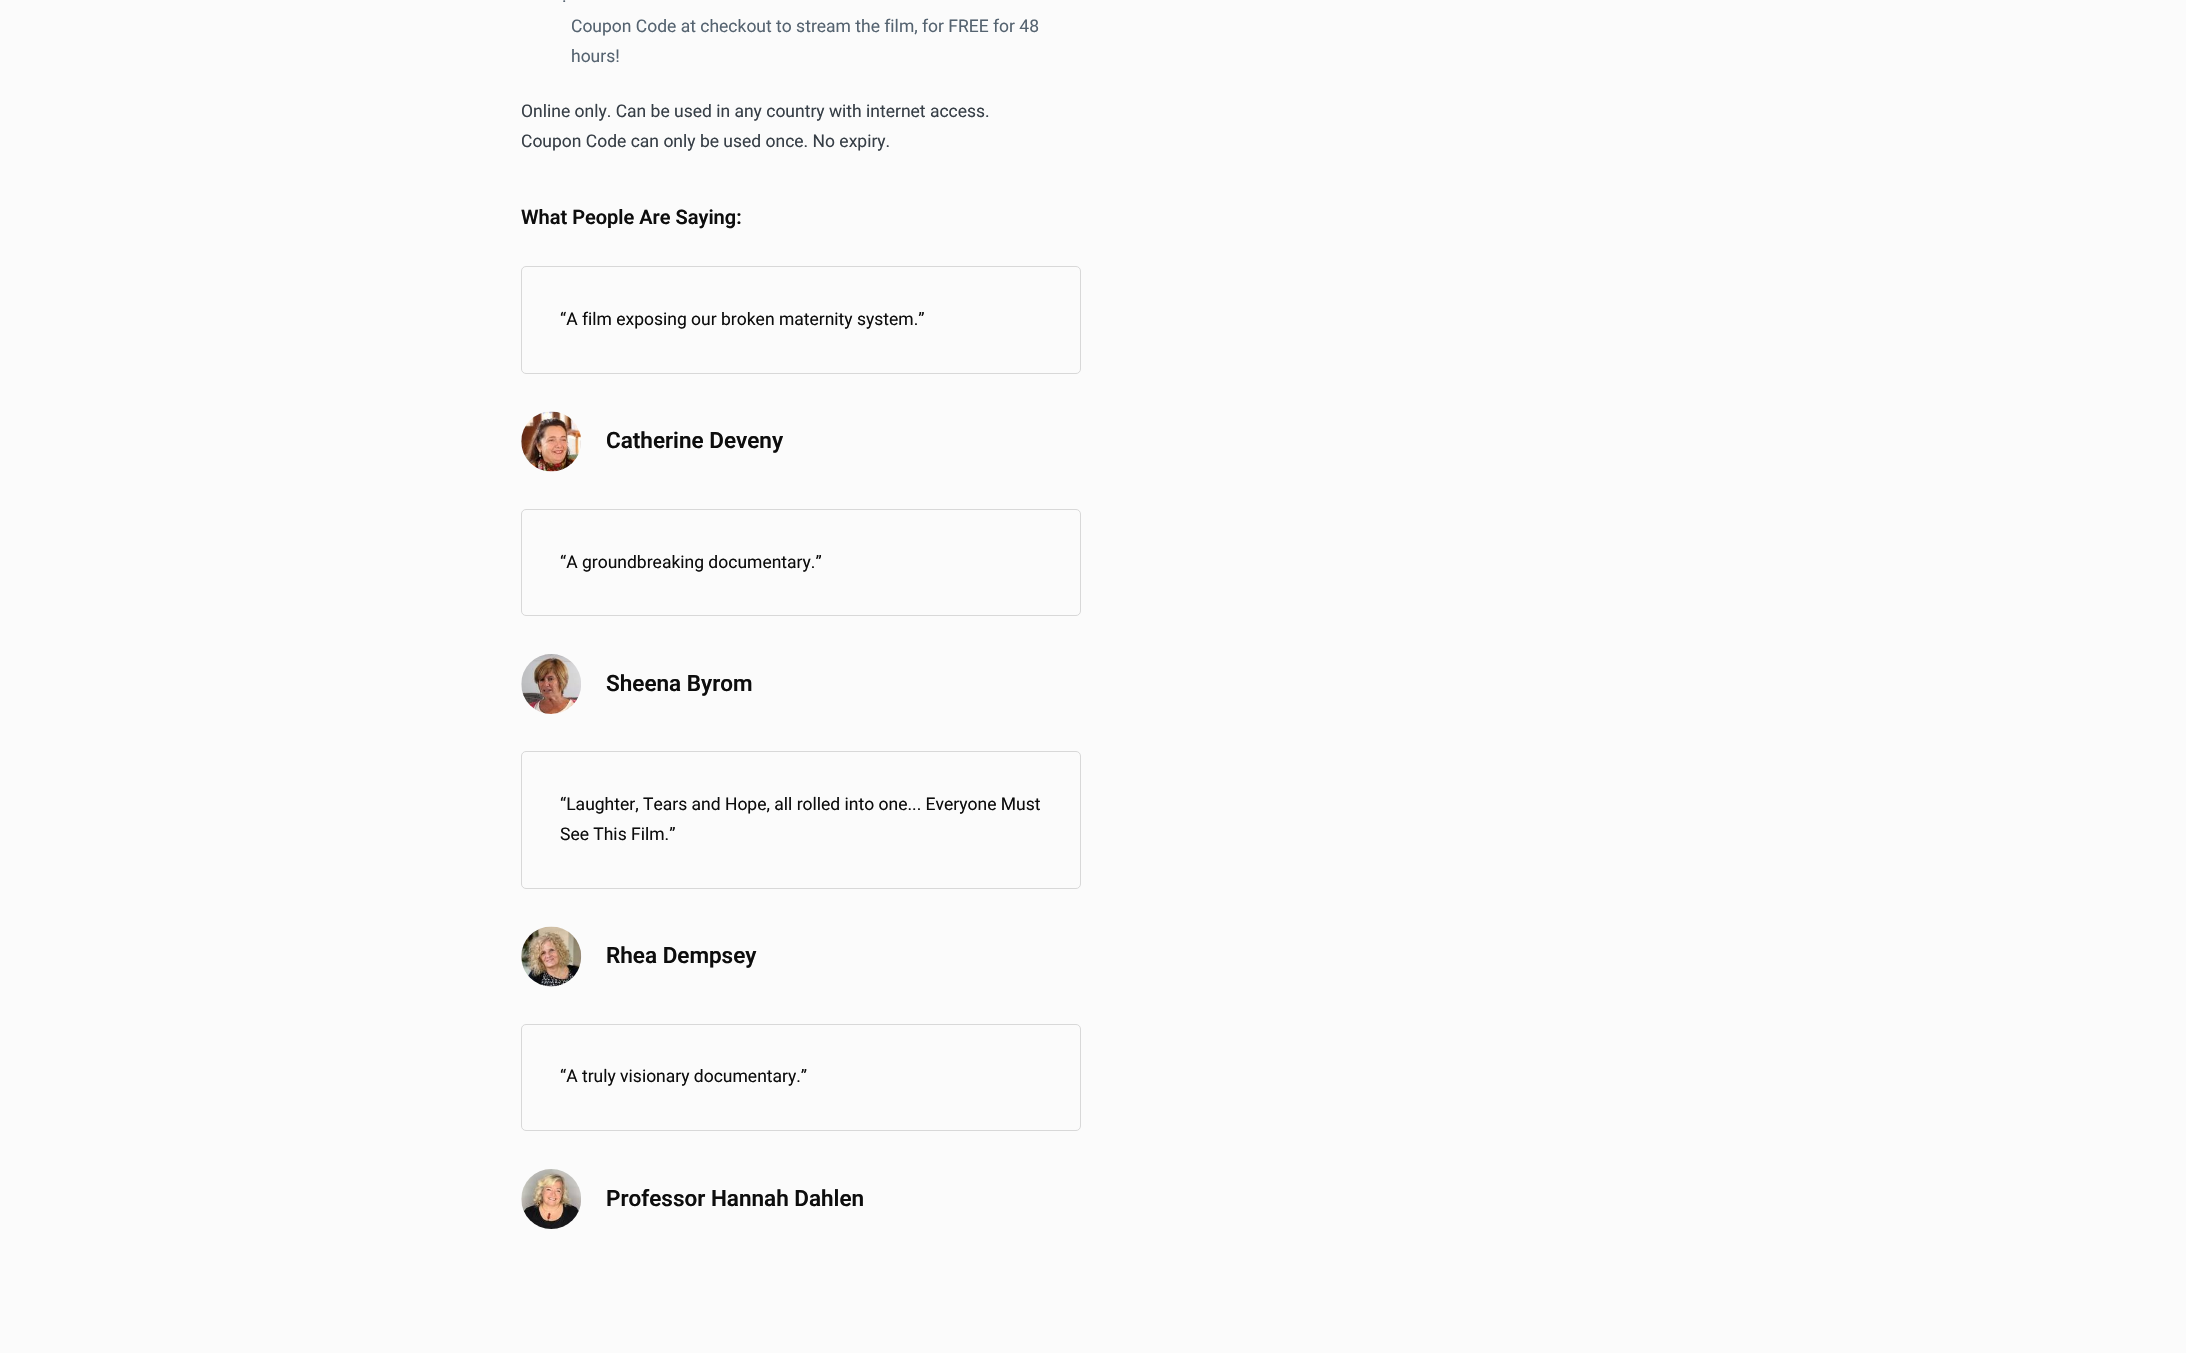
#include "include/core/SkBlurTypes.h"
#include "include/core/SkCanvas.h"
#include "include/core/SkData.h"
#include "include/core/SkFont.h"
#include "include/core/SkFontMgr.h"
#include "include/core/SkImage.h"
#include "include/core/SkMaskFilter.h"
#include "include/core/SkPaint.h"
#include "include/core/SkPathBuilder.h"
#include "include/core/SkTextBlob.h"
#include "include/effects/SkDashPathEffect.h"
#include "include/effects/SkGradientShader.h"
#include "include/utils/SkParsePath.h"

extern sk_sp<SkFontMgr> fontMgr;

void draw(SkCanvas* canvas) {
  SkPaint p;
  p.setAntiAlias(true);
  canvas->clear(SkColorSetRGB(251, 251, 251));
  p.setStyle(SkPaint::kStroke_Style);
  p.setStrokeWidth(1);
  p.setColor(SkColorSetRGB(216, 216, 216));
  canvas->drawRoundRect(SkRect::MakeLTRB(521.5f, 266.5f, 1080.5f, 373.5f), 4.5f, 4.5f, p);
  canvas->drawImageRect(SkImages::DeferredFromEncodedData(SkData::MakeFromFileName("images/1.png")), SkRect::MakeLTRB(521, 411, 581, 472), SkSamplingOptions());
  canvas->drawRoundRect(SkRect::MakeLTRB(521.5f, 509.5f, 1080.5f, 615.5f), 4.5f, 4.5f, p);
  canvas->drawImageRect(SkImages::DeferredFromEncodedData(SkData::MakeFromFileName("images/2.png")), SkRect::MakeLTRB(521, 654, 581, 714), SkSamplingOptions());
  canvas->drawRoundRect(SkRect::MakeLTRB(521.5f, 751.5f, 1080.5f, 888.5f), 4.5f, 4.5f, p);
  canvas->drawImageRect(SkImages::DeferredFromEncodedData(SkData::MakeFromFileName("images/3.png")), SkRect::MakeLTRB(521, 926, 582, 987), SkSamplingOptions());
  canvas->drawRoundRect(SkRect::MakeLTRB(521.5f, 1024.5f, 1080.5f, 1130.5f), 4.5f, 4.5f, p);
  canvas->drawImageRect(SkImages::DeferredFromEncodedData(SkData::MakeFromFileName("images/4.png")), SkRect::MakeLTRB(521, 1169, 581, 1229), SkSamplingOptions());
  SkFont font1(fontMgr->matchFamilyStyle("Roboto", SkFontStyle::Normal()), 17.5f);
  font1.setSubpixel(true);
  p.setStyle(SkPaint::kFill_Style);
  p.setColor(SkColorSetRGB(85, 99, 112));
  canvas->drawString(".", 562, 2, font1, p);
  canvas->drawString("Coupon Code at checkout to stream the film, for FREE for 48", 571, 32, font1, p);
  canvas->drawString("hours!", 571, 62, font1, p);
  p.setColor(SkColorSetRGB(55, 63, 71));
  canvas->drawString("Online only. Can be used in any country with internet access.", 521, 117, font1, p);
  canvas->drawString("Coupon Code can only be used once. No expiry.", 521, 147, font1, p);
  SkFont font2(fontMgr->matchFamilyStyle("Roboto", SkFontStyle(600, SkFontStyle::kNormal_Width, SkFontStyle::kUpright_Slant)), 20);
  font2.setSubpixel(true);
  p.setColor(SkColorSetRGB(13, 13, 13));
  canvas->drawString("What People Are Saying:", 521, 224, font2, p);
  canvas->drawString("“A film exposing our broken maternity system.”", 560, 325, font1, p);
  SkFont font3(fontMgr->matchFamilyStyle("Roboto", SkFontStyle(600, SkFontStyle::kNormal_Width, SkFontStyle::kUpright_Slant)), 22.5f);
  font3.setSubpixel(true);
  canvas->drawString("Catherine Deveny", 606, 448, font3, p);
  canvas->drawString("“A groundbreaking documentary.”", 560, 568, font1, p);
  canvas->drawString("Sheena Byrom", 606, 691, font3, p);
  canvas->drawString("“Laughter, Tears and Hope, all rolled into one... Everyone Must", 560, 810, font1, p);
  canvas->drawString("See This Film.”", 560, 840, font1, p);
  canvas->drawString("Rhea Dempsey", 606, 963, font3, p);
  canvas->drawString("“A truly visionary documentary.”", 560, 1082, font1, p);
  canvas->drawString("Professor Hannah Dahlen", 606, 1206, font3, p);
}
